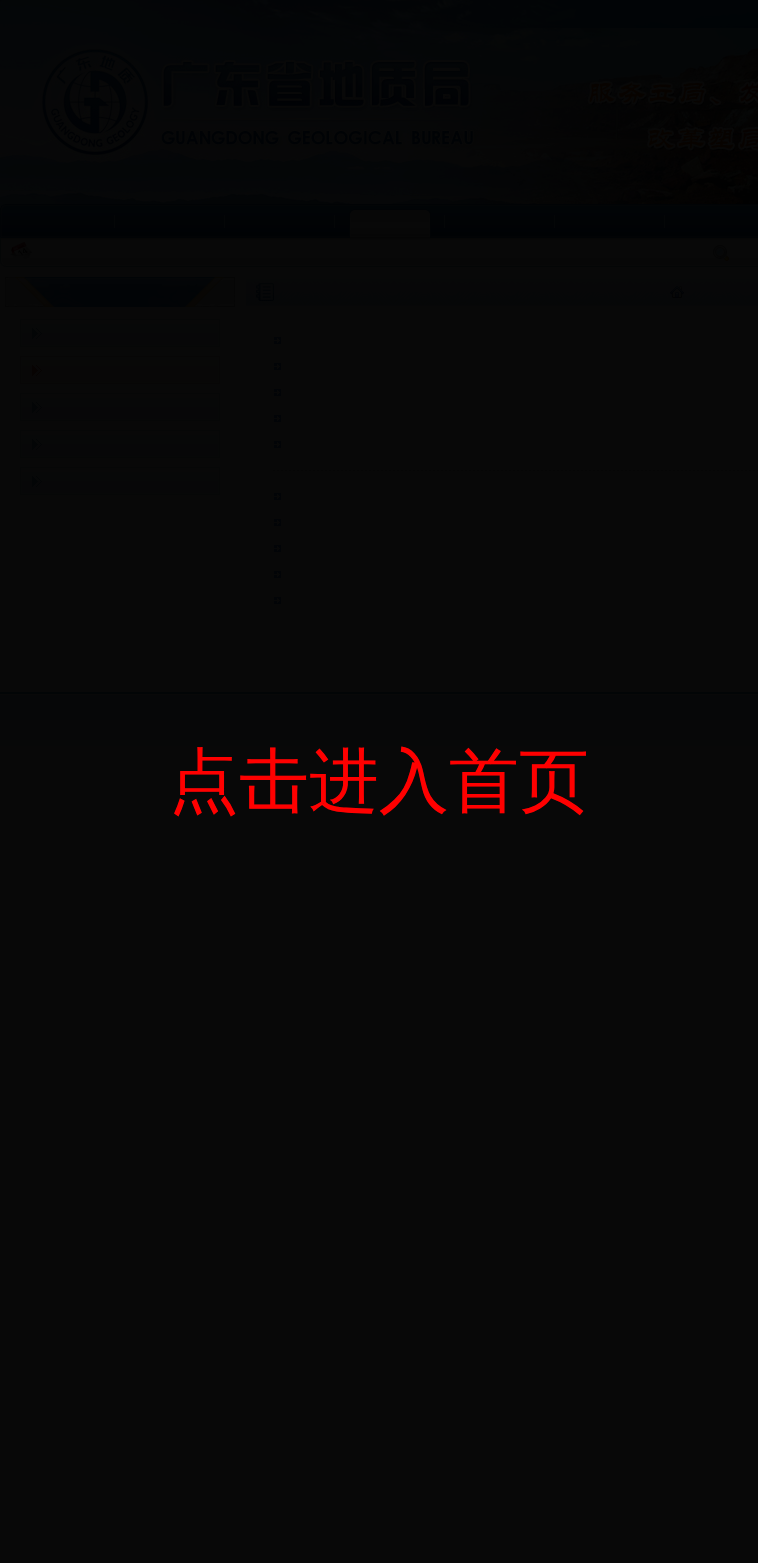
#include "include/core/SkBlurTypes.h"
#include "include/core/SkCanvas.h"
#include "include/core/SkData.h"
#include "include/core/SkFont.h"
#include "include/core/SkFontMgr.h"
#include "include/core/SkImage.h"
#include "include/core/SkMaskFilter.h"
#include "include/core/SkPaint.h"
#include "include/core/SkPathBuilder.h"
#include "include/core/SkTextBlob.h"
#include "include/effects/SkDashPathEffect.h"
#include "include/effects/SkGradientShader.h"
#include "include/utils/SkParsePath.h"

extern sk_sp<SkFontMgr> fontMgr;

void draw(SkCanvas* canvas) {
  SkPaint p;
  p.setAntiAlias(true);
  canvas->clear(SkColorSetRGB(8, 8, 8));
  canvas->drawImageRect(SkImages::DeferredFromEncodedData(SkData::MakeFromFileName("images/1.png")), SkRect::MakeLTRB(0, 0, 758, 204), SkSamplingOptions());
  canvas->drawImageRect(SkImages::DeferredFromEncodedData(SkData::MakeFromFileName("images/2.png")), SkRect::MakeLTRB(6, 204, 758, 267), SkSamplingOptions());
  canvas->drawImageRect(SkImages::DeferredFromEncodedData(SkData::MakeFromFileName("images/3.png")), SkRect::MakeLTRB(0, 204, 6, 267), SkSamplingOptions());
  p.setColor(SkColorSetRGB(4, 6, 7));
  canvas->drawRect(SkRect::MakeLTRB(114, 215, 115, 228), p);
  canvas->drawRect(SkRect::MakeLTRB(224, 215, 225, 228), p);
  canvas->drawRect(SkRect::MakeLTRB(334, 215, 335, 228), p);
  canvas->drawImageRect(SkImages::DeferredFromEncodedData(SkData::MakeFromFileName("images/4.png")), SkRect::MakeLTRB(349, 209, 445, 238), SkSamplingOptions());
  canvas->drawRect(SkRect::MakeLTRB(554, 215, 555, 228), p);
  canvas->drawRect(SkRect::MakeLTRB(664, 215, 665, 228), p);
  canvas->drawImageRect(SkImages::DeferredFromEncodedData(SkData::MakeFromFileName("images/5.png")), SkRect::MakeLTRB(10, 242, 32, 262), SkSamplingOptions());
  canvas->drawImageRect(SkImages::DeferredFromEncodedData(SkData::MakeFromFileName("images/6.png")), SkRect::MakeLTRB(713, 245, 729, 261), SkSamplingOptions());
  canvas->drawImageRect(SkImages::DeferredFromEncodedData(SkData::MakeFromFileName("images/7.png")), SkRect::MakeLTRB(5, 277, 235, 307), SkSamplingOptions());
  canvas->drawImageRect(SkImages::DeferredFromEncodedData(SkData::MakeFromFileName("images/8.png")), SkRect::MakeLTRB(20, 319, 220, 347), SkSamplingOptions());
  canvas->drawImageRect(SkImages::DeferredFromEncodedData(SkData::MakeFromFileName("images/9.png")), SkRect::MakeLTRB(20, 356, 220, 384), SkSamplingOptions());
  canvas->drawImageRect(SkImages::DeferredFromEncodedData(SkData::MakeFromFileName("images/8.png")), SkRect::MakeLTRB(20, 393, 220, 421), SkSamplingOptions());
  canvas->drawImageRect(SkImages::DeferredFromEncodedData(SkData::MakeFromFileName("images/8.png")), SkRect::MakeLTRB(20, 430, 220, 458), SkSamplingOptions());
  canvas->drawImageRect(SkImages::DeferredFromEncodedData(SkData::MakeFromFileName("images/8.png")), SkRect::MakeLTRB(20, 467, 220, 495), SkSamplingOptions());
  canvas->drawImageRect(SkImages::DeferredFromEncodedData(SkData::MakeFromFileName("images/10.png")), SkRect::MakeLTRB(246, 279, 758, 306), SkSamplingOptions());
  canvas->drawImageRect(SkImages::DeferredFromEncodedData(SkData::MakeFromFileName("images/11.png")), SkRect::MakeLTRB(256, 283, 274, 301), SkSamplingOptions());
  canvas->drawImageRect(SkImages::DeferredFromEncodedData(SkData::MakeFromFileName("images/12.png")), SkRect::MakeLTRB(670, 286, 684, 298), SkSamplingOptions());
  canvas->drawImageRect(SkImages::DeferredFromEncodedData(SkData::MakeFromFileName("images/13.png")), SkRect::MakeLTRB(274, 337, 281, 344), SkSamplingOptions());
  canvas->drawImageRect(SkImages::DeferredFromEncodedData(SkData::MakeFromFileName("images/13.png")), SkRect::MakeLTRB(274, 363, 281, 370), SkSamplingOptions());
  canvas->drawImageRect(SkImages::DeferredFromEncodedData(SkData::MakeFromFileName("images/13.png")), SkRect::MakeLTRB(274, 389, 281, 396), SkSamplingOptions());
  canvas->drawImageRect(SkImages::DeferredFromEncodedData(SkData::MakeFromFileName("images/13.png")), SkRect::MakeLTRB(274, 415, 281, 422), SkSamplingOptions());
  canvas->drawImageRect(SkImages::DeferredFromEncodedData(SkData::MakeFromFileName("images/13.png")), SkRect::MakeLTRB(274, 441, 281, 448), SkSamplingOptions());
  canvas->drawImageRect(SkImages::DeferredFromEncodedData(SkData::MakeFromFileName("images/14.png")), SkRect::MakeLTRB(273, 470, 758, 471), SkSamplingOptions());
  canvas->drawImageRect(SkImages::DeferredFromEncodedData(SkData::MakeFromFileName("images/13.png")), SkRect::MakeLTRB(274, 493, 281, 500), SkSamplingOptions());
  canvas->drawImageRect(SkImages::DeferredFromEncodedData(SkData::MakeFromFileName("images/13.png")), SkRect::MakeLTRB(274, 519, 281, 526), SkSamplingOptions());
  canvas->drawImageRect(SkImages::DeferredFromEncodedData(SkData::MakeFromFileName("images/13.png")), SkRect::MakeLTRB(274, 545, 281, 552), SkSamplingOptions());
  canvas->drawImageRect(SkImages::DeferredFromEncodedData(SkData::MakeFromFileName("images/13.png")), SkRect::MakeLTRB(274, 571, 281, 578), SkSamplingOptions());
  canvas->drawImageRect(SkImages::DeferredFromEncodedData(SkData::MakeFromFileName("images/13.png")), SkRect::MakeLTRB(274, 597, 281, 604), SkSamplingOptions());
  canvas->drawImageRect(SkImages::DeferredFromEncodedData(SkData::MakeFromFileName("images/15.png")), SkRect::MakeLTRB(0, 692, 758, 746), SkSamplingOptions());
  SkFont font1(fontMgr->matchFamilyStyle("WenQuanYi Zen Hei", SkFontStyle(500, SkFontStyle::kNormal_Width, SkFontStyle::kUpright_Slant)), 70);
  font1.setSubpixel(true);
  p.setColor(SkColorSetRGB(255, 0, 0));
  canvas->drawString("点击进入首页", 169, 805, font1, p);
}
